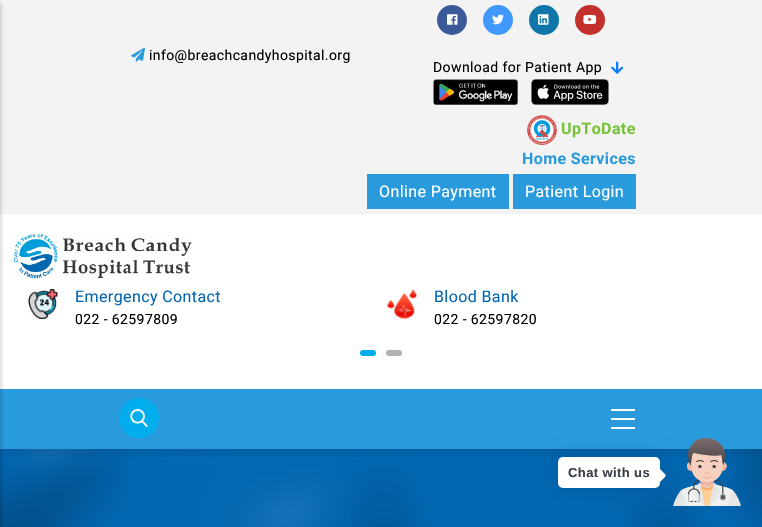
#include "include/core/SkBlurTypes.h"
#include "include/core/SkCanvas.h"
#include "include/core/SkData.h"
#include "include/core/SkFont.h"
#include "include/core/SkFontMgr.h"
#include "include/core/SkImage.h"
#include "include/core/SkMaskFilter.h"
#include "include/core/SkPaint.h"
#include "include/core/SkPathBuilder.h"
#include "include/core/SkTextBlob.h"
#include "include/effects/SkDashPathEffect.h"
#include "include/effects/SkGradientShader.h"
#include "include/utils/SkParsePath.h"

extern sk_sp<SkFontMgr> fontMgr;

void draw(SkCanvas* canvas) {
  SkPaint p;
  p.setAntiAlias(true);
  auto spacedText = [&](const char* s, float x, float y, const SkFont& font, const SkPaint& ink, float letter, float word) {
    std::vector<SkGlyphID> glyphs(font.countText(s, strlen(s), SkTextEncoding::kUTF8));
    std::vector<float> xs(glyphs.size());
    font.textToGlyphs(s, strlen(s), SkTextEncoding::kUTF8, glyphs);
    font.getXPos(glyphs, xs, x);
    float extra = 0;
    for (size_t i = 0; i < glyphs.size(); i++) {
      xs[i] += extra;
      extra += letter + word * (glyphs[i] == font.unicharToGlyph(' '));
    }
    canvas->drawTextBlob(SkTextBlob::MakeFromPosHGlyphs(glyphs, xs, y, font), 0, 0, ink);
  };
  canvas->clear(SK_ColorWHITE);
  p.setColor(SkColorSetRGB(2, 102, 177));
  canvas->drawRect(SkRect::MakeLTRB(0, 449, 762, 527), p);
  canvas->drawImageRect(SkImages::DeferredFromEncodedData(SkData::MakeFromFileName("images/14.png")), SkRect::MakeLTRB(0, 449, 762, 527), SkSamplingOptions());
  canvas->save();
  canvas->clipRect(SkRect::MakeLTRB(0, 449, 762, 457));
  p.setColor(SkColorSetARGB(26, 0, 0, 0));
  p.setMaskFilter(SkMaskFilter::MakeBlur(kNormal_SkBlurStyle, 5));
  canvas->drawRect(SkRect::MakeLTRB(-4, -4, 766, 453), p);
  p.setMaskFilter(nullptr);
  canvas->restore();
  p.setColor(SkColorSetRGB(41, 154, 220));
  canvas->drawRect(SkRect::MakeLTRB(0, 389, 762, 449), p);
  p.setColor(SkColorSetRGB(243, 243, 243));
  canvas->drawRect(SkRect::MakeLTRB(0, 0, 762, 214), p);
  p.setColor(SkColorSetARGB(51, 0, 0, 0));
  p.setMaskFilter(SkMaskFilter::MakeBlur(kNormal_SkBlurStyle, 2));
  canvas->drawRect(SkRect::MakeLTRB(-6, 3, 1, 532), p);
  p.setMaskFilter(nullptr);
  p.setColor(SkColorSetRGB(2, 173, 238));
  canvas->drawCircle(139, 418, 20, p);
  canvas->drawImageRect(SkImages::DeferredFromEncodedData(SkData::MakeFromFileName("images/1.png")), SkRect::MakeLTRB(130, 409, 148, 427), SkSamplingOptions());
  p.setColor(SK_ColorWHITE);
  canvas->drawRect(SkRect::MakeLTRB(611, 409, 635, 411), p);
  canvas->drawRect(SkRect::MakeLTRB(611, 418, 635, 420), p);
  canvas->drawRect(SkRect::MakeLTRB(611, 427, 635, 429), p);
  canvas->drawImageRect(SkImages::DeferredFromEncodedData(SkData::MakeFromFileName("images/2.png")), SkRect::MakeLTRB(131, 47, 145, 62), SkSamplingOptions());
  p.setColor(SkColorSetRGB(59, 89, 152));
  canvas->drawCircle(452, 20, 15, p);
  canvas->drawImageRect(SkImages::DeferredFromEncodedData(SkData::MakeFromFileName("images/3.png")), SkRect::MakeLTRB(447, 14, 458, 25), SkSamplingOptions());
  p.setColor(SkColorSetRGB(64, 153, 255));
  canvas->drawCircle(498, 20, 15, p);
  canvas->drawImageRect(SkImages::DeferredFromEncodedData(SkData::MakeFromFileName("images/4.png")), SkRect::MakeLTRB(492, 14, 504, 25), SkSamplingOptions());
  p.setColor(SkColorSetRGB(14, 118, 168));
  canvas->drawCircle(544, 20, 15, p);
  canvas->drawImageRect(SkImages::DeferredFromEncodedData(SkData::MakeFromFileName("images/5.png")), SkRect::MakeLTRB(538, 14, 549, 25), SkSamplingOptions());
  p.setColor(SkColorSetRGB(196, 48, 43));
  canvas->drawCircle(590, 20, 15, p);
  canvas->drawImageRect(SkImages::DeferredFromEncodedData(SkData::MakeFromFileName("images/6.png")), SkRect::MakeLTRB(583, 15, 597, 24), SkSamplingOptions());
  canvas->drawImageRect(SkImages::DeferredFromEncodedData(SkData::MakeFromFileName("images/7.png")), SkRect::MakeLTRB(611, 61, 623, 74), SkSamplingOptions());
  canvas->drawImageRect(SkImages::DeferredFromEncodedData(SkData::MakeFromFileName("images/8.png")), SkRect::MakeLTRB(433, 79, 518, 105), SkSamplingOptions());
  canvas->drawImageRect(SkImages::DeferredFromEncodedData(SkData::MakeFromFileName("images/9.png")), SkRect::MakeLTRB(531, 79, 609, 105), SkSamplingOptions());
  canvas->drawImageRect(SkImages::DeferredFromEncodedData(SkData::MakeFromFileName("images/10.png")), SkRect::MakeLTRB(527, 115, 557, 145), SkSamplingOptions());
  p.setColor(SkColorSetRGB(41, 154, 220));
  canvas->drawRect(SkRect::MakeLTRB(367, 174, 509, 209), p);
  canvas->drawRect(SkRect::MakeLTRB(513, 174, 636, 209), p);
  canvas->drawImageRect(SkImages::DeferredFromEncodedData(SkData::MakeFromFileName("images/11.png")), SkRect::MakeLTRB(13, 233, 192, 279), SkSamplingOptions());
  canvas->drawImageRect(SkImages::DeferredFromEncodedData(SkData::MakeFromFileName("images/12.png")), SkRect::MakeLTRB(28, 289, 58, 319), SkSamplingOptions());
  canvas->drawImageRect(SkImages::DeferredFromEncodedData(SkData::MakeFromFileName("images/13.png")), SkRect::MakeLTRB(387, 289, 417, 319), SkSamplingOptions());
  p.setColor(SkColorSetRGB(2, 173, 238));
  canvas->drawRoundRect(SkRect::MakeLTRB(360, 350, 376, 356), 3, 3, p);
  p.setColor(SkColorSetRGB(173, 178, 181));
  canvas->drawRoundRect(SkRect::MakeLTRB(386, 350, 402, 356), 3, 3, p);
  canvas->drawImageRect(SkImages::DeferredFromEncodedData(SkData::MakeFromFileName("images/15.png")), SkRect::MakeLTRB(673, 438, 741, 506), SkSamplingOptions());
  p.setColor(SkColorSetARGB(26, 0, 0, 0));
  p.setMaskFilter(SkMaskFilter::MakeBlur(kNormal_SkBlurStyle, 10));
  canvas->drawRoundRect(SkRect::MakeLTRB(558, 457, 660, 488), 5, 5, p);
  p.setMaskFilter(nullptr);
  p.setColor(SK_ColorWHITE);
  canvas->drawRoundRect(SkRect::MakeLTRB(558, 457, 660, 488), 5, 5, p);
  canvas->drawPath(SkPathBuilder().moveTo(659.5f, 468.5f).lineTo(664, 473).cubicTo(667, 476, 665.5f, 476.5f, 663, 479).cubicTo(658, 484, 659, 485, 654, 479.5f).cubicTo(650, 476, 649, 476, 653, 472).cubicTo(654, 471, 657, 466.5f, 659.5f, 468.5f).close().detach(), p);
  SkFont font1(fontMgr->matchFamilyStyle("Roboto", SkFontStyle::Normal()), 14);
  font1.setSubpixel(true);
  p.setColor(SK_ColorBLACK);
  spacedText("info@breachcandyhospital.org", 149, 60, font1, p, 0.4f, 0);
  spacedText("Download for Patient App", 433, 72, font1, p, 0.4f, 0);
  SkFont font2(fontMgr->matchFamilyStyle("Roboto", SkFontStyle::Bold()), 16);
  font2.setSubpixel(true);
  p.setColor(SkColorSetRGB(119, 194, 59));
  spacedText("UpToDate", 561, 134, font2, p, 0.4f, 0);
  p.setColor(SkColorSetRGB(41, 154, 220));
  spacedText("Home Services", 522, 164, font2, p, 0.4f, 0);
  SkFont font3(fontMgr->matchFamilyStyle("Roboto", SkFontStyle::Normal()), 16);
  font3.setSubpixel(true);
  p.setColor(SK_ColorWHITE);
  spacedText("Online Payment", 379, 197, font3, p, 0.4f, 0);
  spacedText("Patient Login", 525, 197, font3, p, 0.4f, 0);
  p.setColor(SkColorSetRGB(2, 102, 177));
  spacedText("Emergency Contact", 75, 302, font3, p, 0.4f, 0);
  p.setColor(SK_ColorBLACK);
  spacedText("022 - 62597809", 75, 324, font1, p, 0.4f, 0);
  p.setColor(SkColorSetRGB(2, 102, 177));
  spacedText("Blood Bank", 434, 302, font3, p, 0.4f, 0);
  p.setColor(SK_ColorBLACK);
  spacedText("022 - 62597820", 434, 324, font1, p, 0.4f, 0);
  SkFont font4(fontMgr->matchFamilyStyle("Liberation Sans", SkFontStyle::Bold()), 13);
  font4.setSubpixel(true);
  p.setColor(SkColorSetRGB(55, 63, 74));
  spacedText("Chat with us", 568, 477, font4, p, 0.4f, 0);
}
